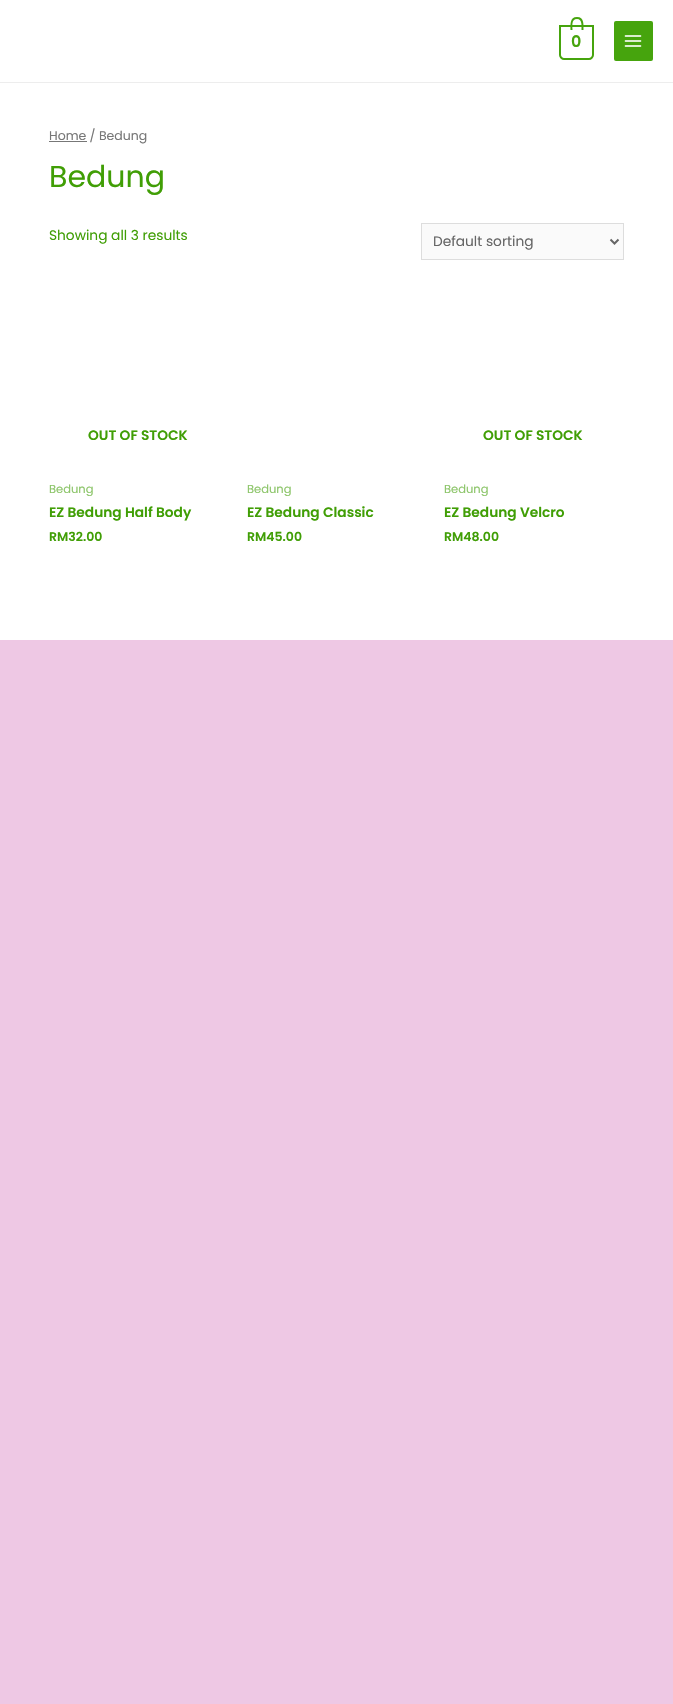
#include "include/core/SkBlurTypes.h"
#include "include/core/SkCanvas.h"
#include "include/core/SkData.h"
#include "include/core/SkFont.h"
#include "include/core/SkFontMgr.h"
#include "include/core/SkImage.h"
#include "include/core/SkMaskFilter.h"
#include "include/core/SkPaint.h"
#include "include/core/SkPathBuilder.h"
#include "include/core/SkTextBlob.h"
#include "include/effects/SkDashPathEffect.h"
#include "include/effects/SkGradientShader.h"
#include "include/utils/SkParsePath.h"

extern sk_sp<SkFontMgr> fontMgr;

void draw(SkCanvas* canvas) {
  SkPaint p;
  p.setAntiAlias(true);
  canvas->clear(SK_ColorWHITE);
  p.setColor(SkColorSetRGB(237, 237, 237));
  canvas->drawRect(SkRect::MakeLTRB(0, 82, 673, 83), p);
  p.setStyle(SkPaint::kStroke_Style);
  p.setStrokeWidth(2);
  p.setColor(SkColorSetRGB(70, 164, 13));
  canvas->drawPath(SkPathBuilder().moveTo(560, 26).lineTo(593, 26).lineTo(593, 55).cubicTo(593, 57, 591, 59, 589, 59).lineTo(564, 59).cubicTo(562, 59, 560, 57, 560, 55).close().detach(), p);
  p.setStyle(SkPaint::kFill_Style);
  canvas->drawPath(SkPathBuilder(SkPathFillType::kEvenOdd).moveTo(577, 17).cubicTo(584.5f, 17, 583.5f, 25, 583.5f, 30).lineTo(570.5f, 30).cubicTo(570.5f, 25, 569.5f, 17, 577, 17).close().moveTo(577, 19).cubicTo(582.5f, 19, 581.5f, 26.5f, 581.5f, 30).lineTo(572.5f, 30).cubicTo(572.5f, 26.5f, 571, 19, 577, 19).close().detach(), p);
  canvas->drawRoundRect(SkRect::MakeLTRB(614, 21, 653, 61), 2, 2, p);
  canvas->drawImageRect(SkImages::DeferredFromEncodedData(SkData::MakeFromFileName("images/1.png")), SkRect::MakeLTRB(624, 35, 642, 47), SkSamplingOptions());
  p.setColor(SkColorSetRGB(119, 119, 119));
  canvas->drawRect(SkRect::MakeLTRB(49, 141, 87, 142), p);
  p.setColor(SkColorSetRGB(250, 250, 250));
  canvas->drawRect(SkRect::MakeLTRB(421.5f, 223.5f, 623.5f, 259.5f), p);
  p.setStyle(SkPaint::kStroke_Style);
  p.setStrokeWidth(1);
  p.setColor(SkColorSetRGB(221, 221, 221));
  canvas->drawRect(SkRect::MakeLTRB(421.5f, 223.5f, 623.5f, 259.5f), p);
  p.setStrokeWidth(2);
  p.setColor(SkColorSetRGB(102, 102, 102));
  canvas->drawPath(SkPathBuilder().moveTo(610.5f, 239.5f).lineTo(614.5f, 243.5f).lineTo(618.5f, 239.5f).detach(), p);
  p.setStyle(SkPaint::kFill_Style);
  p.setColor(SkColorSetRGB(238, 200, 228));
  canvas->drawRect(SkRect::MakeLTRB(0, 640, 673, 1704), p);
  SkFont font1(fontMgr->matchFamilyStyle("Poppins", SkFontStyle(600, SkFontStyle::kNormal_Width, SkFontStyle::kUpright_Slant)), 16);
  font1.setSubpixel(true);
  p.setColor(SkColorSetRGB(70, 164, 13));
  canvas->drawString("0", 571, 47, font1, p);
  SkFont font2(fontMgr->matchFamilyStyle("Poppins", SkFontStyle::Normal()), 12.5f);
  font2.setSubpixel(true);
  p.setColor(SkColorSetRGB(119, 119, 119));
  canvas->drawString("Home / Bedung", 49, 140, font2, p);
  SkFont font3(fontMgr->matchFamilyStyle("Poppins", SkFontStyle::Normal()), 30);
  font3.setSubpixel(true);
  p.setColor(SkColorSetRGB(64, 158, 5));
  canvas->drawString("Bedung", 49, 187, font3, p);
  SkFont font4(fontMgr->matchFamilyStyle("Poppins", SkFontStyle::Normal()), 13.75f);
  font4.setSubpixel(true);
  canvas->drawString("Showing all 3 results", 49, 240, font4, p);
  p.setColor(SkColorSetRGB(102, 102, 102));
  canvas->drawString("Default sorting", 433, 246, font4, p);
  SkFont font5(fontMgr->matchFamilyStyle("Poppins", SkFontStyle(600, SkFontStyle::kNormal_Width, SkFontStyle::kUpright_Slant)), 13.75f);
  font5.setSubpixel(true);
  p.setColor(SkColorSetRGB(64, 158, 5));
  canvas->drawString("OUT OF STOCK", 88, 440, font5, p);
  SkFont font6(fontMgr->matchFamilyStyle("Poppins", SkFontStyle::Normal()), 11.5f);
  font6.setSubpixel(true);
  p.setColor(SkColorSetRGB(140, 197, 105));
  canvas->drawString("Bedung", 49, 493, font6, p);
  p.setColor(SkColorSetRGB(64, 158, 5));
  canvas->drawString("EZ Bedung Half Body", 49, 517, font5, p);
  SkFont font7(fontMgr->matchFamilyStyle("Poppins", SkFontStyle(600, SkFontStyle::kNormal_Width, SkFontStyle::kUpright_Slant)), 12.5f);
  font7.setSubpixel(true);
  canvas->drawString("RM32.00", 49, 541, font7, p);
  p.setColor(SkColorSetRGB(140, 197, 105));
  canvas->drawString("Bedung", 247, 493, font6, p);
  p.setColor(SkColorSetRGB(64, 158, 5));
  canvas->drawString("EZ Bedung Classic", 247, 517, font5, p);
  canvas->drawString("RM45.00", 247, 541, font7, p);
  canvas->drawString("OUT OF STOCK", 483, 440, font5, p);
  p.setColor(SkColorSetRGB(140, 197, 105));
  canvas->drawString("Bedung", 444, 493, font6, p);
  p.setColor(SkColorSetRGB(64, 158, 5));
  canvas->drawString("EZ Bedung Velcro", 444, 517, font5, p);
  canvas->drawString("RM48.00", 444, 541, font7, p);
}
